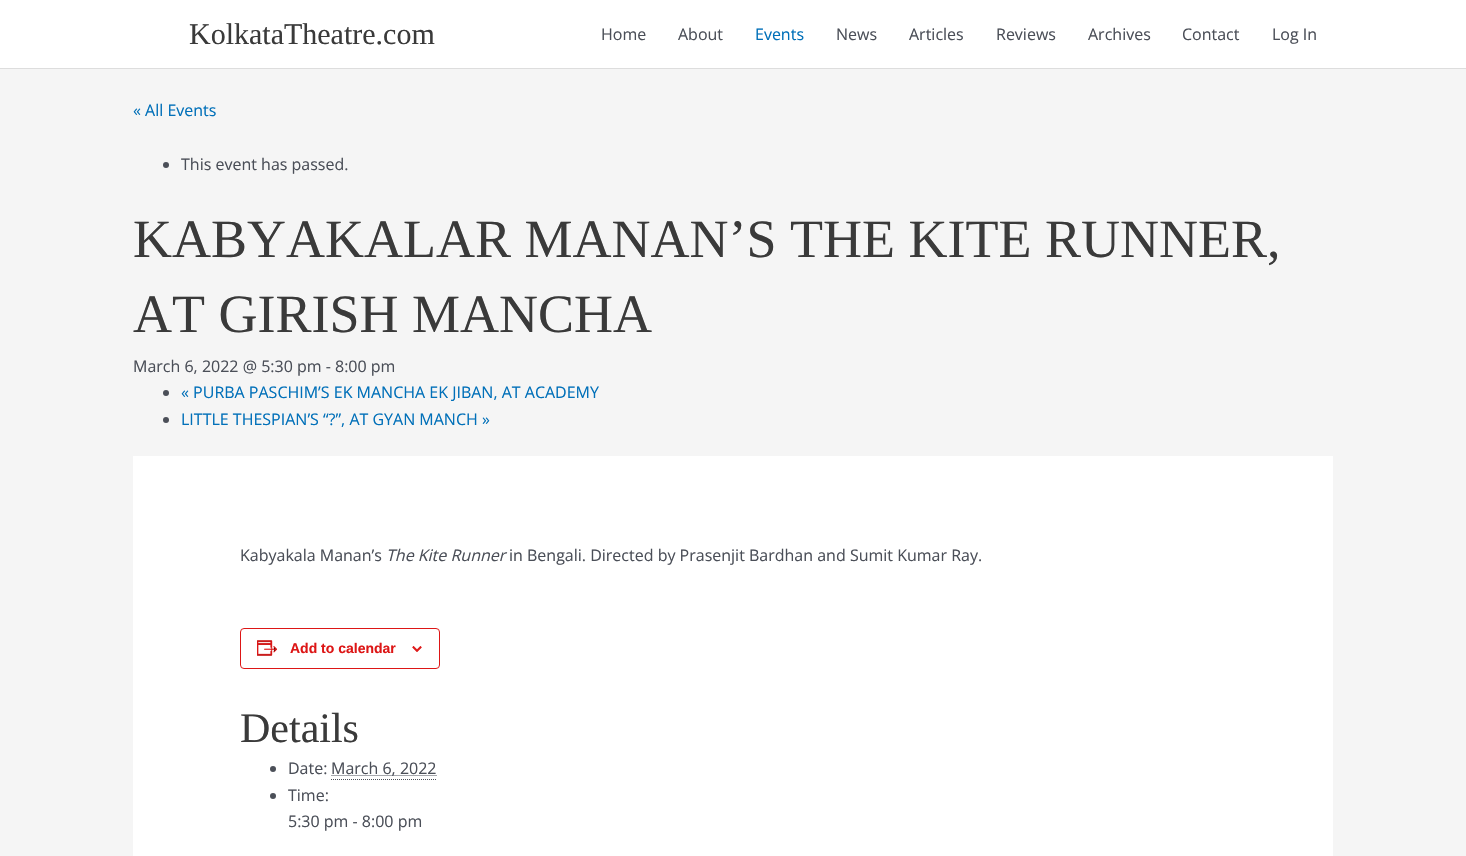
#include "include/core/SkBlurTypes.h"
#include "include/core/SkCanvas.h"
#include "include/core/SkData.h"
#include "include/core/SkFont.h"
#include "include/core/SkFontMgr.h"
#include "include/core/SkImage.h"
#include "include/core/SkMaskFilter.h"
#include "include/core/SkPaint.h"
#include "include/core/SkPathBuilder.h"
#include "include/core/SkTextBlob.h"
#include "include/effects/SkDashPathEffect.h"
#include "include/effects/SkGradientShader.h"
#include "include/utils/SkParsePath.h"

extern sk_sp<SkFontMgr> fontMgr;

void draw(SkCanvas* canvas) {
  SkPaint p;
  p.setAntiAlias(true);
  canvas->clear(SkColorSetRGB(245, 245, 245));
  p.setColor(SK_ColorWHITE);
  canvas->drawRect(SkRect::MakeLTRB(0, 0, 1466, 68), p);
  p.setColor(SkColorSetRGB(221, 221, 221));
  canvas->drawRect(SkRect::MakeLTRB(0, 68, 1466, 69), p);
  p.setColor(SkColorSetRGB(75, 79, 88));
  canvas->drawCircle(166, 165, 3, p);
  canvas->drawCircle(166, 393, 3, p);
  canvas->drawCircle(166, 420, 3, p);
  p.setColor(SK_ColorWHITE);
  canvas->drawRect(SkRect::MakeLTRB(133, 456, 1333, 856), p);
  p.setStyle(SkPaint::kStroke_Style);
  p.setStrokeWidth(1);
  p.setColor(SkColorSetRGB(221, 22, 22));
  canvas->drawRoundRect(SkRect::MakeLTRB(240.5f, 628.5f, 439.5f, 668.5f), 3.5f, 3.5f, p);
  canvas->drawImageRect(SkImages::DeferredFromEncodedData(SkData::MakeFromFileName("images/1.png")), SkRect::MakeLTRB(257, 640, 278, 656), SkSamplingOptions());
  canvas->drawImageRect(SkImages::DeferredFromEncodedData(SkData::MakeFromFileName("images/2.png")), SkRect::MakeLTRB(412, 646, 422, 652), SkSamplingOptions());
  p.setStyle(SkPaint::kFill_Style);
  p.setColor(SkColorSetRGB(75, 79, 88));
  canvas->drawCircle(273, 769, 3, p);
  p.setStyle(SkPaint::kStroke_Style);
  p.setPathEffect(SkDashPathEffect::Make({{1, 1}}, 0));
  canvas->drawPath(SkPathBuilder().moveTo(331, 779.5f).lineTo(437, 779.5f).detach(), p);
  p.setPathEffect(nullptr);
  p.setPathEffect(SkDashPathEffect::Make({{1, 1}}, 0));
  canvas->drawPath(SkPathBuilder().moveTo(331.5f, 775.5f).lineTo(437, 775.5f).detach(), p);
  p.setPathEffect(nullptr);
  p.setStyle(SkPaint::kFill_Style);
  canvas->drawCircle(273, 796, 3, p);
  SkFont font1(fontMgr->matchFamilyStyle("Liberation Serif", SkFontStyle::Normal()), 30);
  font1.setSubpixel(true);
  p.setColor(SkColorSetRGB(58, 58, 58));
  canvas->drawString("KolkataTheatre.com", 189, 44, font1, p);
  SkFont font2(fontMgr->matchFamilyStyle("Open Sans", SkFontStyle::Normal()), 16);
  font2.setSubpixel(true);
  p.setColor(SkColorSetRGB(75, 79, 88));
  canvas->drawString("Home", 601, 40, font2, p);
  canvas->drawString("About", 678, 40, font2, p);
  p.setColor(SkColorSetRGB(1, 112, 185));
  canvas->drawString("Events", 755, 40, font2, p);
  p.setColor(SkColorSetRGB(75, 79, 88));
  canvas->drawString("News", 836, 40, font2, p);
  canvas->drawString("Articles", 909, 40, font2, p);
  canvas->drawString("Reviews", 996, 40, font2, p);
  canvas->drawString("Archives", 1088, 40, font2, p);
  canvas->drawString("Contact", 1182, 40, font2, p);
  canvas->drawString("Log In", 1272, 40, font2, p);
  p.setColor(SkColorSetRGB(1, 112, 185));
  canvas->drawString("« All Events", 133, 116, font2, p);
  p.setColor(SkColorSetRGB(75, 79, 88));
  canvas->drawString("This event has passed.", 181, 170, font2, p);
  SkFont font3(fontMgr->matchFamilyStyle("Liberation Serif", SkFontStyle::Normal()), 54);
  font3.setSubpixel(true);
  p.setColor(SkColorSetRGB(58, 58, 58));
  canvas->drawString("KABYAKALAR MANAN’S THE KITE RUNNER,", 133, 257, font3, p);
  canvas->drawString("AT GIRISH MANCHA", 133, 332, font3, p);
  p.setColor(SkColorSetRGB(75, 79, 88));
  canvas->drawString("March 6, 2022 @ 5:30 pm - 8:00 pm", 133, 372, font2, p);
  p.setColor(SkColorSetRGB(1, 112, 185));
  canvas->drawString("« PURBA PASCHIM’S EK MANCHA EK JIBAN, AT ACADEMY", 181, 398, font2, p);
  canvas->drawString("LITTLE THESPIAN’S “?”, AT GYAN MANCH »", 181, 425, font2, p);
  p.setColor(SkColorSetRGB(75, 79, 88));
  canvas->drawString("Kabyakala Manan’s", 240, 561, font2, p);
  SkFont font4(fontMgr->matchFamilyStyle("Open Sans", SkFontStyle::Italic()), 16);
  font4.setSubpixel(true);
  canvas->drawString("The Kite Runner", 386, 561, font4, p);
  canvas->drawString("in Bengali. Directed by Prasenjit Bardhan and Sumit Kumar Ray.", 509, 561, font2, p);
  SkFont font5(fontMgr->matchFamilyStyle("Liberation Sans", SkFontStyle::Bold()), 14);
  font5.setSubpixel(true);
  p.setColor(SkColorSetRGB(221, 22, 22));
  canvas->drawString("Add to calendar", 290, 653, font5, p);
  SkFont font6(fontMgr->matchFamilyStyle("Liberation Serif", SkFontStyle::Normal()), 42);
  font6.setSubpixel(true);
  p.setColor(SkColorSetRGB(58, 58, 58));
  canvas->drawString("Details", 240, 742, font6, p);
  p.setColor(SkColorSetRGB(75, 79, 88));
  canvas->drawString("Date:", 288, 774, font2, p);
  canvas->drawString("March 6, 2022", 331, 774, font2, p);
  canvas->drawString("Time:", 288, 801, font2, p);
  canvas->drawString("5:30 pm - 8:00 pm", 288, 827, font2, p);
}
